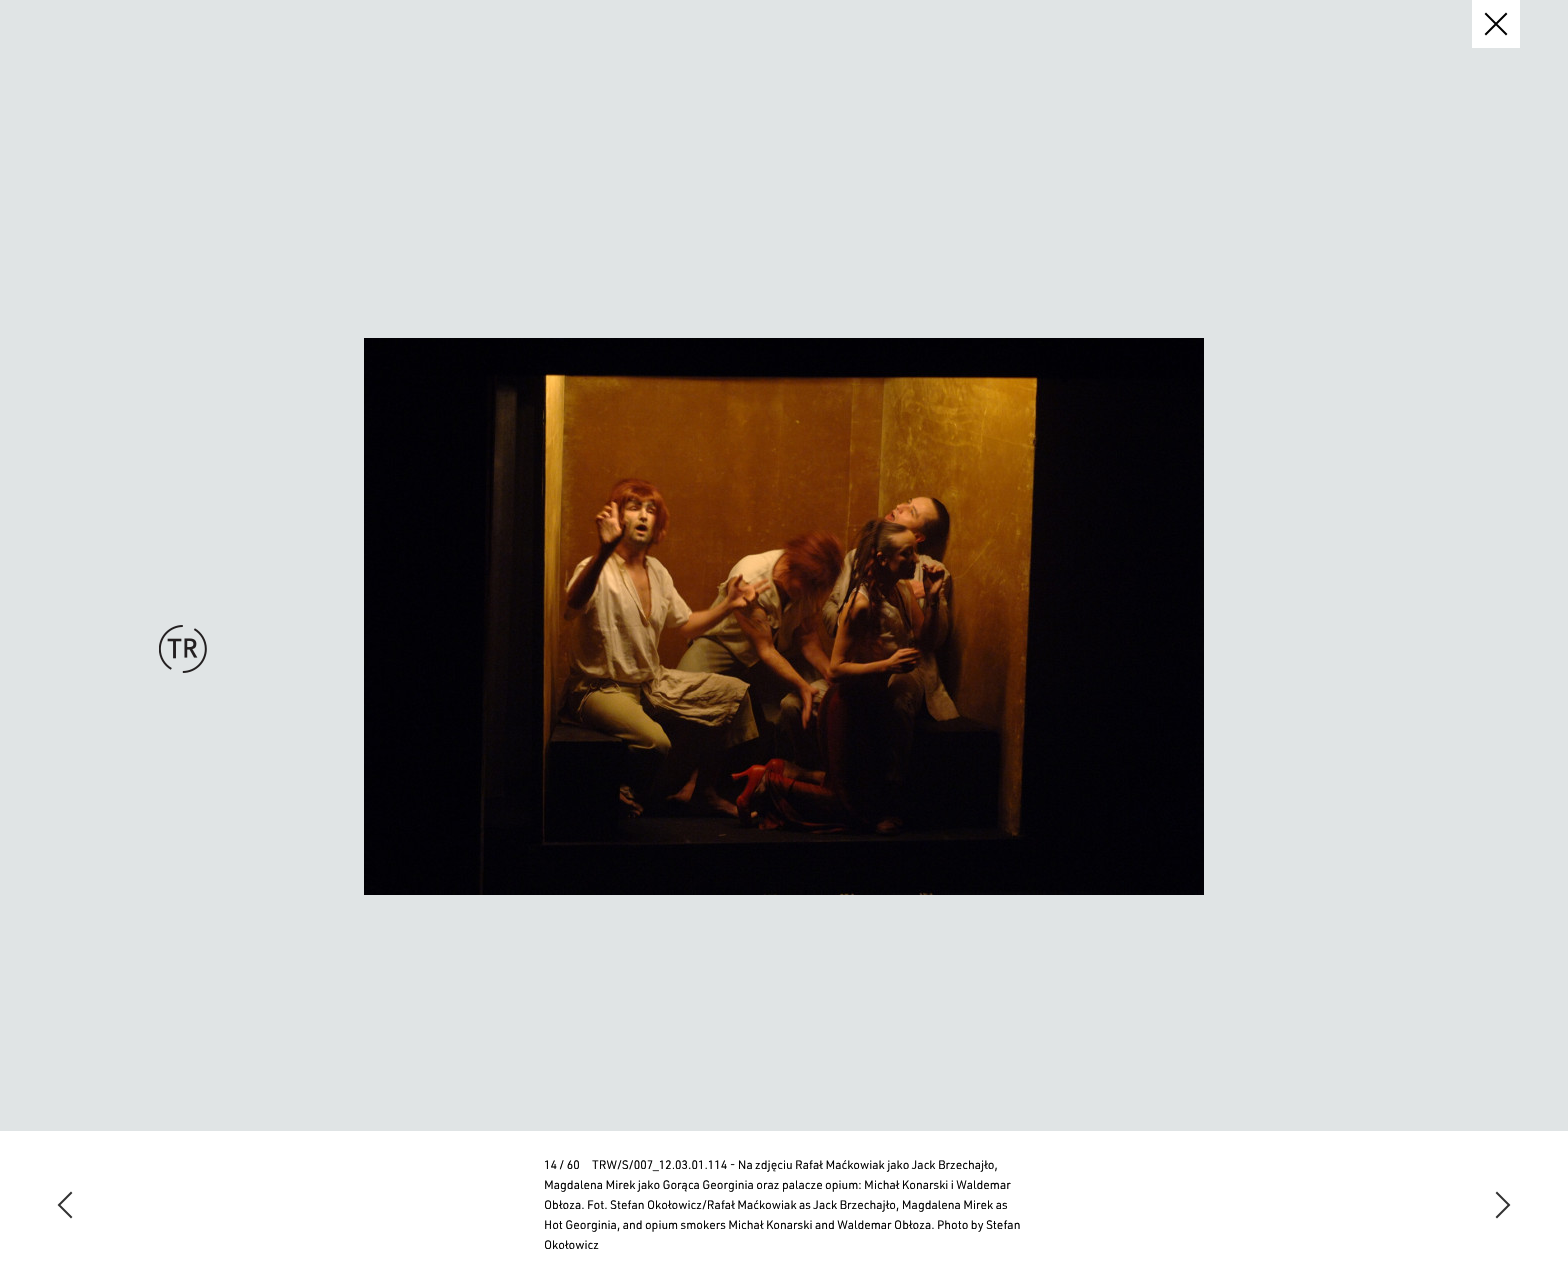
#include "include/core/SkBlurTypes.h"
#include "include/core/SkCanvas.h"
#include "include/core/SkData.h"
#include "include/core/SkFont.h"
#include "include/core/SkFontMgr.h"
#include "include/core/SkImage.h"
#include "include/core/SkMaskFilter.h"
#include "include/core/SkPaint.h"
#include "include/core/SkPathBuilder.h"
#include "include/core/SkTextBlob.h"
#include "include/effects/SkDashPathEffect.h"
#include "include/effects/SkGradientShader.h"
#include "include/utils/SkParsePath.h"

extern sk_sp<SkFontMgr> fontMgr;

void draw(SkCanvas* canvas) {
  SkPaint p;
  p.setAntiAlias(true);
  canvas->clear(SkColorSetRGB(224, 228, 229));
  canvas->drawImageRect(SkImages::DeferredFromEncodedData(SkData::MakeFromFileName("images/1.png")), SkRect::MakeLTRB(159, 625, 207, 673), SkSamplingOptions());
  p.setColor(SK_ColorWHITE);
  canvas->drawRect(SkRect::MakeLTRB(1472, 0, 1520, 48), p);
  p.setStyle(SkPaint::kStroke_Style);
  p.setStrokeWidth(2);
  p.setStrokeCap(SkPaint::kSquare_Cap);
  p.setColor(SK_ColorBLACK);
  canvas->drawPath(SkPathBuilder().moveTo(1486, 14).lineTo(1506, 34).moveTo(1506, 14).lineTo(1486, 34).detach(), p);
  canvas->drawImageRect(SkImages::DeferredFromEncodedData(SkData::MakeFromFileName("images/2.png")), SkRect::MakeLTRB(364, 338, 1204, 895), SkSamplingOptions());
  p.setStyle(SkPaint::kFill_Style);
  p.setColor(SK_ColorWHITE);
  canvas->drawRect(SkRect::MakeLTRB(0, 1131, 1568, 1279), p);
  p.setStyle(SkPaint::kStroke_Style);
  p.setColor(SkColorSetRGB(51, 51, 51));
  canvas->drawPath(SkPathBuilder().moveTo(59, 1205).lineTo(71, 1217).moveTo(71, 1193).lineTo(59, 1205).detach(), p);
  canvas->drawPath(SkPathBuilder().moveTo(1509, 1205).lineTo(1497, 1193).moveTo(1497, 1217).lineTo(1509, 1205).detach(), p);
  SkFont font1(fontMgr->matchFamilyStyle("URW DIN", SkFontStyle::Normal()), 12);
  font1.setSubpixel(true);
  p.setStyle(SkPaint::kFill_Style);
  p.setColor(SK_ColorBLACK);
  canvas->drawString("14 / 60", 544, 1169, font1, p);
  canvas->drawString("TRW/S/007_12.03.01.114 - Na zdjęciu Rafał Maćkowiak jako Jack Brzechajło,", 592, 1169, font1, p);
  canvas->drawString("Magdalena Mirek jako Gorąca Georginia oraz palacze opium: Michał Konarski i Waldemar", 544, 1189, font1, p);
  canvas->drawString("Obłoza. Fot. Stefan Okołowicz/Rafał Maćkowiak as Jack Brzechajło, Magdalena Mirek as", 544, 1209, font1, p);
  canvas->drawString("Hot Georginia, and opium smokers Michał Konarski and Waldemar Obłoza. Photo by Stefan", 544, 1229, font1, p);
  canvas->drawString("Okołowicz", 544, 1249, font1, p);
}
